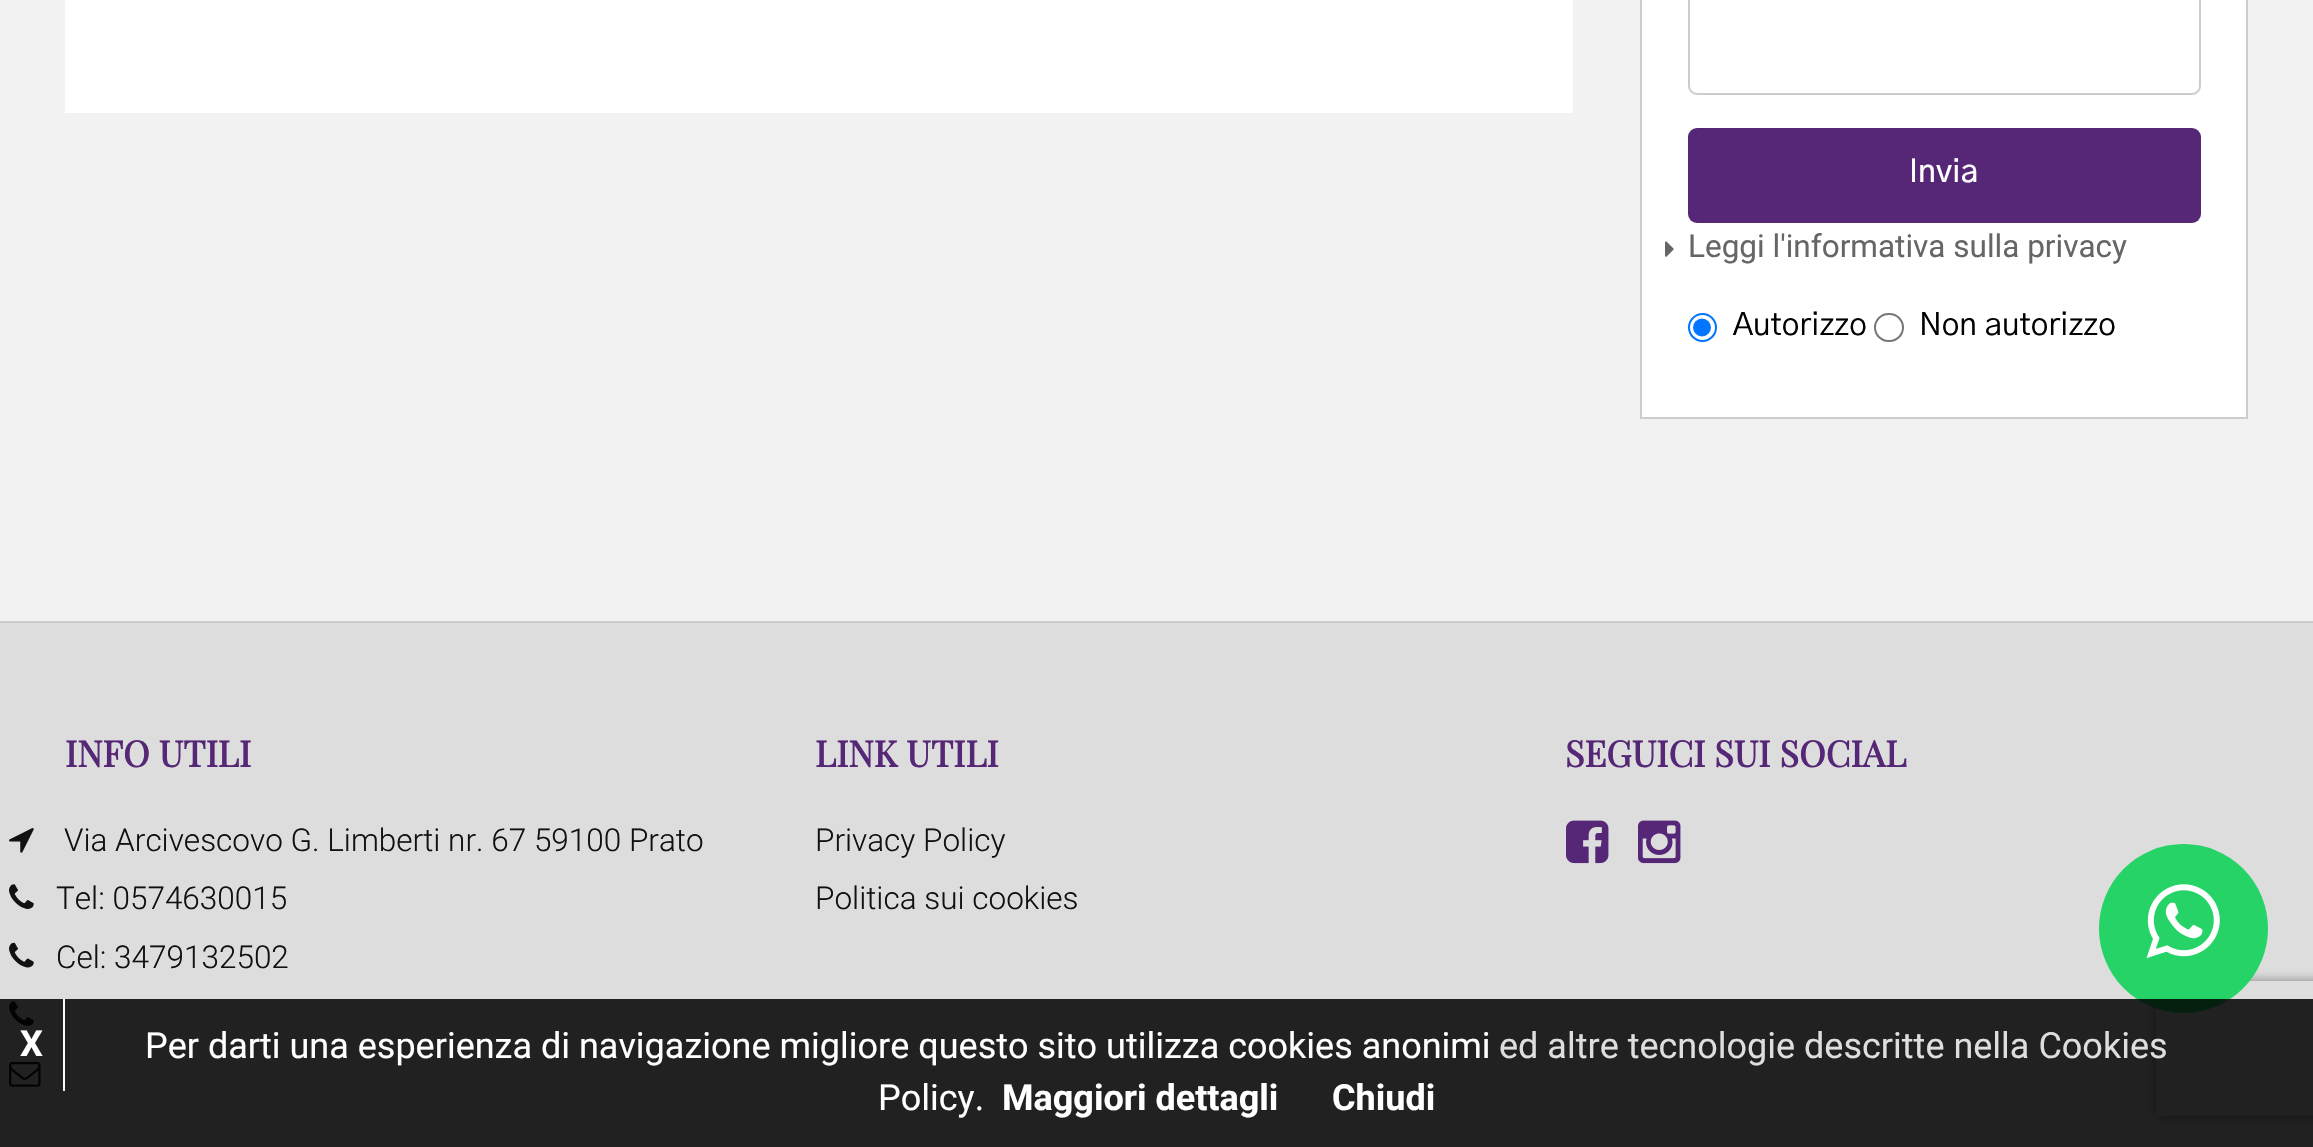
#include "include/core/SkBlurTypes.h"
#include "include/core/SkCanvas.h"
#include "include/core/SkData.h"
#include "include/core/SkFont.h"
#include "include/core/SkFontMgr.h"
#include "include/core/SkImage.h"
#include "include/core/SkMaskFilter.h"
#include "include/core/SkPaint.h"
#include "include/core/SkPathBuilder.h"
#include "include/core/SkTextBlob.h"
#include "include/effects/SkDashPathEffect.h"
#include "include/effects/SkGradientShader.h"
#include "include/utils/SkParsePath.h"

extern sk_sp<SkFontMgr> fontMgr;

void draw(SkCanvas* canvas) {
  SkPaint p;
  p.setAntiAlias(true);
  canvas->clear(SkColorSetRGB(242, 242, 242));
  p.setColor(SK_ColorWHITE);
  canvas->drawRect(SkRect::MakeLTRB(65, 0, 1573, 113), p);
  canvas->drawRect(SkRect::MakeLTRB(1641, -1, 2247, 418), p);
  p.setStyle(SkPaint::kStroke_Style);
  p.setStrokeWidth(2);
  p.setColor(SkColorSetRGB(204, 204, 204));
  canvas->drawRect(SkRect::MakeLTRB(1641, -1, 2247, 418), p);
  canvas->drawRoundRect(SkRect::MakeLTRB(1689, -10, 2200, 94), 8, 8, p);
  p.setStyle(SkPaint::kFill_Style);
  p.setColor(SkColorSetRGB(85, 39, 118));
  canvas->drawRoundRect(SkRect::MakeLTRB(1688, 128, 2201, 223), 9, 9, p);
  canvas->drawImageRect(SkImages::DeferredFromEncodedData(SkData::MakeFromFileName("images/1.png")), SkRect::MakeLTRB(1665, 241, 1674, 257), SkSamplingOptions());
  p.setStyle(SkPaint::kStroke_Style);
  p.setColor(SkColorSetRGB(0, 117, 255));
  canvas->drawCircle(1702.5f, 327.5f, 13.5f, p);
  p.setStyle(SkPaint::kFill_Style);
  canvas->drawCircle(1702, 327.5f, 9, p);
  p.setStyle(SkPaint::kStroke_Style);
  p.setColor(SkColorSetRGB(118, 118, 118));
  canvas->drawRoundRect(SkRect::MakeLTRB(1875, 314, 1903, 341), 13.5f, 13.5f, p);
  p.setStyle(SkPaint::kFill_Style);
  p.setColor(SkColorSetRGB(221, 221, 221));
  canvas->drawRect(SkRect::MakeLTRB(0, 623, 2313, 1147), p);
  p.setColor(SkColorSetRGB(204, 204, 204));
  canvas->drawRect(SkRect::MakeLTRB(0, 621, 2313, 623), p);
  canvas->drawImageRect(SkImages::DeferredFromEncodedData(SkData::MakeFromFileName("images/2.png")), SkRect::MakeLTRB(9, 828, 34, 853), SkSamplingOptions());
  canvas->drawImageRect(SkImages::DeferredFromEncodedData(SkData::MakeFromFileName("images/3.png")), SkRect::MakeLTRB(9, 884, 34, 909), SkSamplingOptions());
  canvas->drawImageRect(SkImages::DeferredFromEncodedData(SkData::MakeFromFileName("images/4.png")), SkRect::MakeLTRB(9, 942, 34, 968), SkSamplingOptions());
  canvas->drawImageRect(SkImages::DeferredFromEncodedData(SkData::MakeFromFileName("images/3.png")), SkRect::MakeLTRB(9, 1001, 34, 1026), SkSamplingOptions());
  canvas->drawImageRect(SkImages::DeferredFromEncodedData(SkData::MakeFromFileName("images/5.png")), SkRect::MakeLTRB(9, 1062, 41, 1087), SkSamplingOptions());
  canvas->drawImageRect(SkImages::DeferredFromEncodedData(SkData::MakeFromFileName("images/6.png")), SkRect::MakeLTRB(1566, 820, 1609, 864), SkSamplingOptions());
  canvas->drawImageRect(SkImages::DeferredFromEncodedData(SkData::MakeFromFileName("images/7.png")), SkRect::MakeLTRB(1638, 820, 1681, 864), SkSamplingOptions());
  canvas->save();
  canvas->clipPath(SkPathBuilder(SkPathFillType::kEvenOdd).moveTo(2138, 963).lineTo(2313, 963).lineTo(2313, 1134).lineTo(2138, 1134).close().moveTo(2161, 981).lineTo(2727, 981).cubicTo(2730, 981, 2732, 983, 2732, 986).lineTo(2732, 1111).cubicTo(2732, 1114, 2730, 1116, 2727, 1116).lineTo(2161, 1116).cubicTo(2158, 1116, 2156, 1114, 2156, 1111).lineTo(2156, 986).cubicTo(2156, 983, 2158, 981, 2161, 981).close().detach(), true);
  p.setColor(SkColorSetRGB(128, 128, 128));
  p.setMaskFilter(SkMaskFilter::MakeBlur(kNormal_SkBlurStyle, 5.5f));
  canvas->drawRoundRect(SkRect::MakeLTRB(2156, 981, 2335, 1116), 5, 5, p);
  p.setMaskFilter(nullptr);
  canvas->restore();
  p.setColor(SkColorSetRGB(37, 211, 102));
  canvas->drawCircle(2183.5f, 928.5f, 84.5f, p);
  canvas->drawImageRect(SkImages::DeferredFromEncodedData(SkData::MakeFromFileName("images/8.png")), SkRect::MakeLTRB(2146, 884, 2220, 959), SkSamplingOptions());
  p.setColor(SkColorSetARGB(217, 0, 0, 0));
  canvas->drawRect(SkRect::MakeLTRB(0, 999, 2313, 1147), p);
  p.setColor(SkColorSetRGB(250, 250, 250));
  canvas->drawRect(SkRect::MakeLTRB(63, 999, 65, 1091), p);
  SkFont font1(fontMgr->matchFamilyStyle("Gothic A1", SkFontStyle(500, SkFontStyle::kNormal_Width, SkFontStyle::kUpright_Slant)), 31.5f);
  font1.setSubpixel(true);
  p.setColor(SK_ColorWHITE);
  canvas->drawString("Invia", 1909, 182, font1, p);
  SkFont font2(fontMgr->matchFamilyStyle("Roboto", SkFontStyle::Normal()), 31.5f);
  font2.setSubpixel(true);
  p.setColor(SkColorSetRGB(102, 102, 102));
  canvas->drawString("Leggi l'informativa sulla privacy", 1688, 257, font2, p);
  SkFont font3(fontMgr->matchFamilyStyle("Gothic A1", SkFontStyle::Normal()), 31.5f);
  font3.setSubpixel(true);
  p.setColor(SK_ColorBLACK);
  canvas->drawString("Autorizzo", 1733, 335, font3, p);
  canvas->drawString("Non autorizzo", 1919, 335, font3, p);
  SkFont font4(fontMgr->matchFamilyStyle("Playfair Display", SkFontStyle::Bold()), 36);
  font4.setSubpixel(true);
  p.setColor(SkColorSetRGB(85, 39, 118));
  canvas->drawString("INFO UTILI", 65, 767, font4, p);
  SkFont font5(fontMgr->matchFamilyStyle("Roboto", SkFontStyle(300, SkFontStyle::kNormal_Width, SkFontStyle::kUpright_Slant)), 31.5f);
  font5.setSubpixel(true);
  p.setColor(SkColorSetRGB(17, 17, 17));
  canvas->drawString("Via Arcivescovo G. Limberti nr. 67 59100 Prato", 64, 851, font5, p);
  canvas->drawString("Tel: 0574630015", 56, 909, font5, p);
  canvas->drawString("Cel: 3479132502", 56, 968, font5, p);
  p.setColor(SkColorSetRGB(85, 39, 118));
  canvas->drawString("LINK UTILI", 815, 767, font4, p);
  p.setColor(SkColorSetRGB(17, 17, 17));
  canvas->drawString("Privacy Policy", 815, 851, font5, p);
  canvas->drawString("Politica sui cookies", 815, 909, font5, p);
  p.setColor(SkColorSetRGB(85, 39, 118));
  canvas->drawString("SEGUICI SUI SOCIAL", 1565, 767, font4, p);
  SkFont font6(fontMgr->matchFamilyStyle("Roboto", SkFontStyle::Bold()), 36);
  font6.setSubpixel(true);
  p.setColor(SK_ColorWHITE);
  canvas->drawString("X", 20, 1056, font6, p);
  SkFont font7(fontMgr->matchFamilyStyle("Roboto", SkFontStyle::Normal()), 36);
  font7.setSubpixel(true);
  canvas->drawString("Per darti una esperienza di navigazione migliore questo sito utilizza cookies anonimi", 145, 1058, font7, p);
  p.setColor(SkColorSetRGB(222, 222, 222));
  canvas->drawString("ed altre tecnologie descritte nella Cookies", 1499, 1058, font7, p);
  p.setColor(SK_ColorWHITE);
  canvas->drawString("Policy.", 878, 1110, font7, p);
  canvas->drawString("Maggiori dettagli", 1002, 1110, font6, p);
  canvas->drawString("Chiudi", 1332, 1110, font6, p);
}
